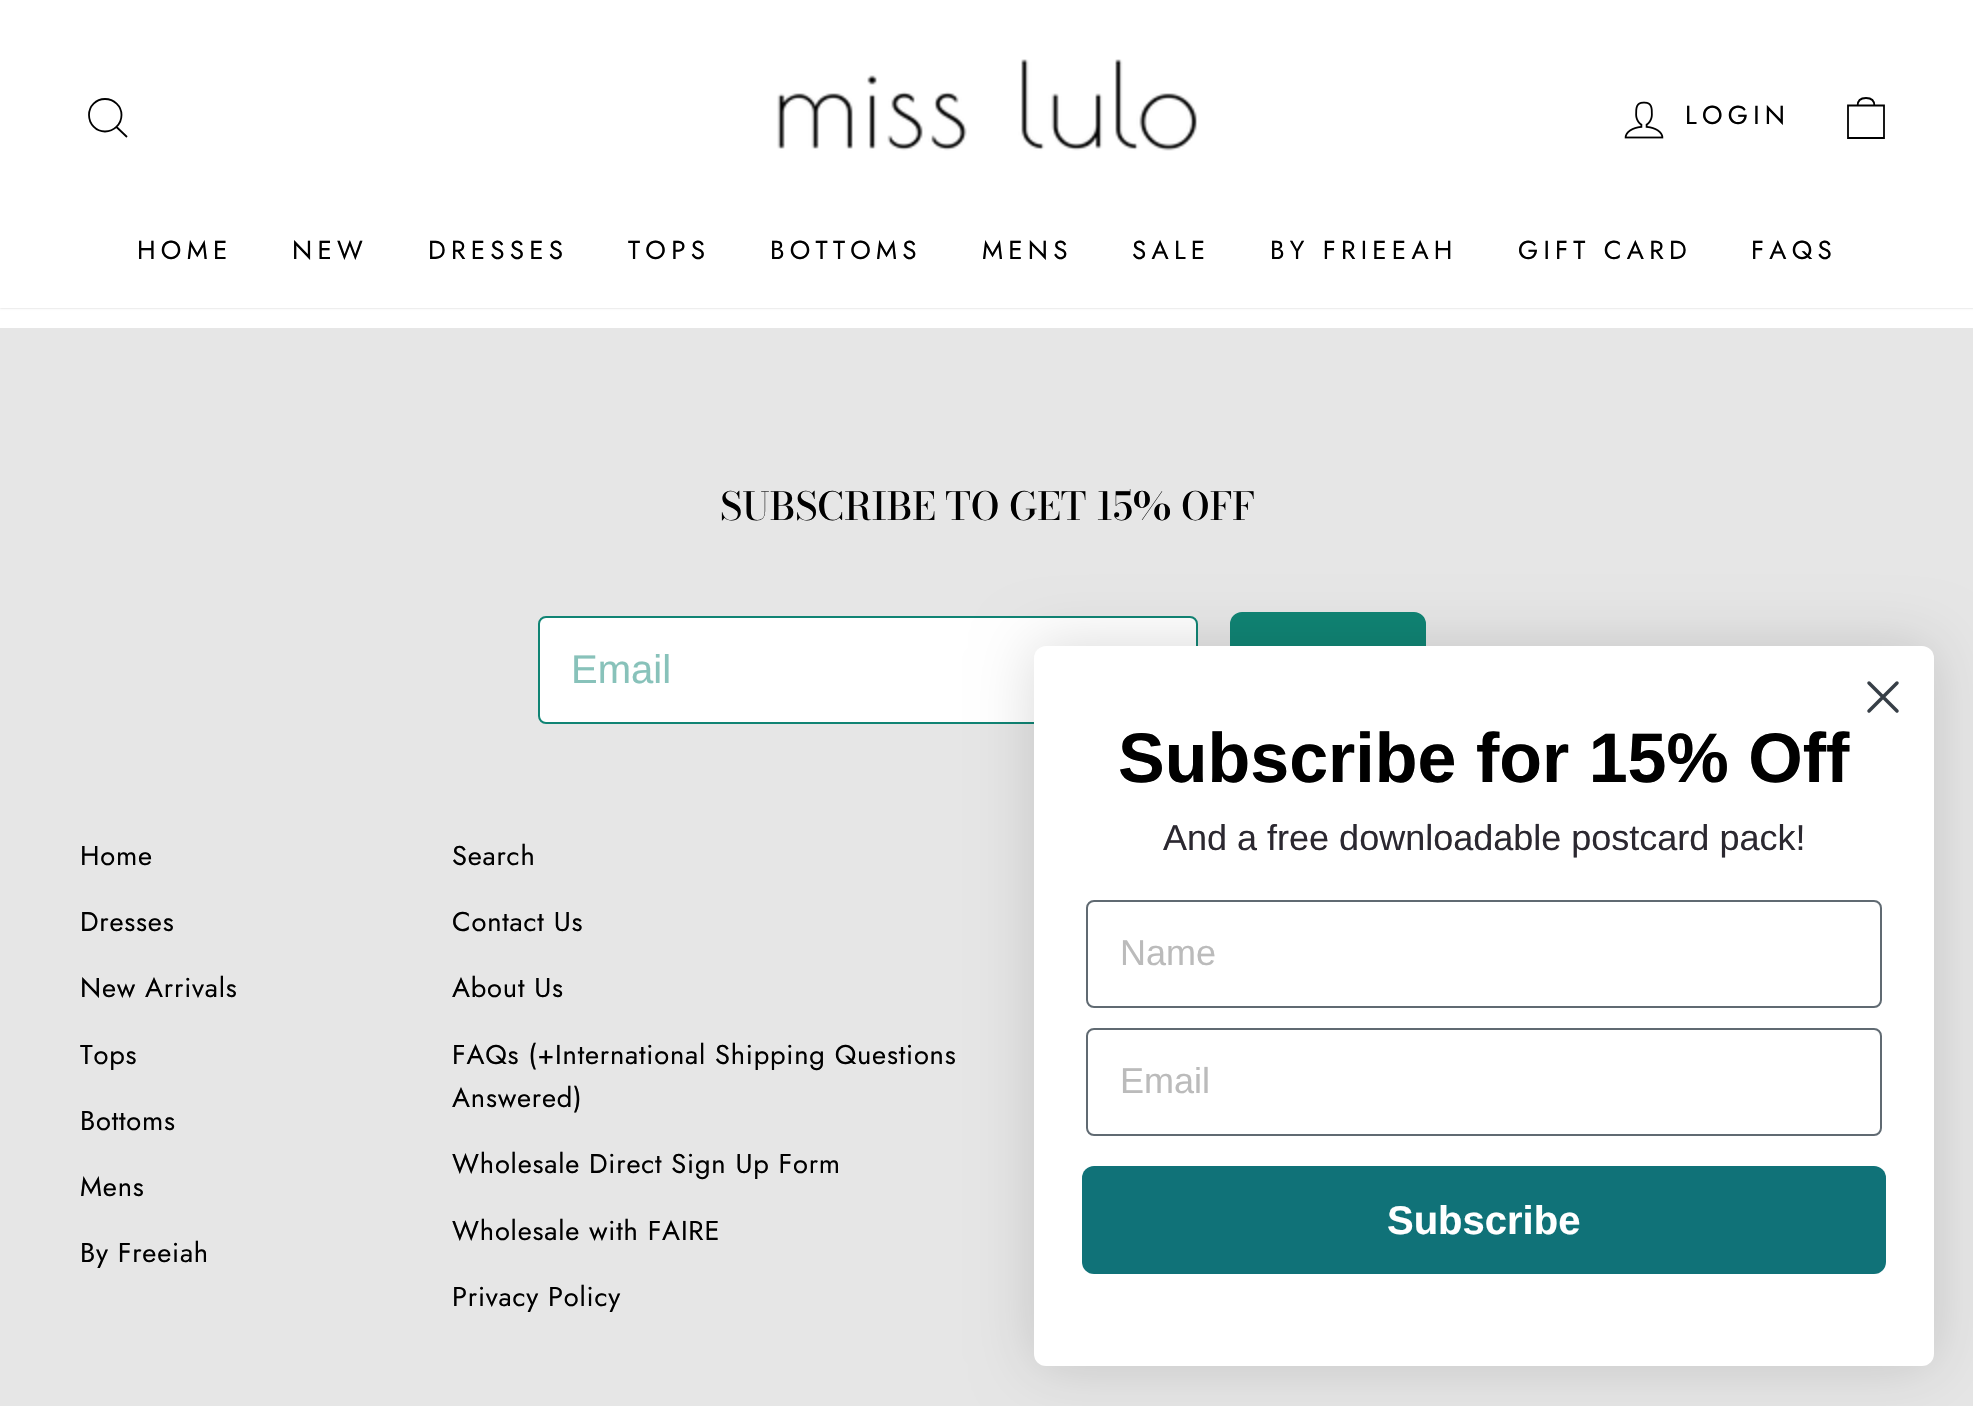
#include "include/core/SkBlurTypes.h"
#include "include/core/SkCanvas.h"
#include "include/core/SkData.h"
#include "include/core/SkFont.h"
#include "include/core/SkFontMgr.h"
#include "include/core/SkImage.h"
#include "include/core/SkMaskFilter.h"
#include "include/core/SkPaint.h"
#include "include/core/SkPathBuilder.h"
#include "include/core/SkTextBlob.h"
#include "include/effects/SkDashPathEffect.h"
#include "include/effects/SkGradientShader.h"
#include "include/utils/SkParsePath.h"

extern sk_sp<SkFontMgr> fontMgr;

void draw(SkCanvas* canvas) {
  SkPaint p;
  p.setAntiAlias(true);
  auto spacedText = [&](const char* s, float x, float y, const SkFont& font, const SkPaint& ink, float letter, float word) {
    std::vector<SkGlyphID> glyphs(font.countText(s, strlen(s), SkTextEncoding::kUTF8));
    std::vector<float> xs(glyphs.size());
    font.textToGlyphs(s, strlen(s), SkTextEncoding::kUTF8, glyphs);
    font.getXPos(glyphs, xs, x);
    float extra = 0;
    for (size_t i = 0; i < glyphs.size(); i++) {
      xs[i] += extra;
      extra += letter + word * (glyphs[i] == font.unicharToGlyph(' '));
    }
    canvas->drawTextBlob(SkTextBlob::MakeFromPosHGlyphs(glyphs, xs, y, font), 0, 0, ink);
  };
  canvas->clear(SK_ColorWHITE);
  p.setColor(SkColorSetARGB(51, 0, 0, 0));
  p.setMaskFilter(SkMaskFilter::MakeBlur(kNormal_SkBlurStyle, 1));
  canvas->drawRect(SkRect::MakeLTRB(0, 0, 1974, 308), p);
  p.setMaskFilter(nullptr);
  p.setColor(SK_ColorWHITE);
  canvas->drawRect(SkRect::MakeLTRB(0, 0, 1973, 308), p);
  p.setStyle(SkPaint::kStroke_Style);
  p.setStrokeWidth(1.8f);
  p.setColor(SK_ColorBLACK);
  canvas->drawPath(SkPathBuilder().moveTo(121.5f, 115).cubicTo(121.5f, 124, 114, 131.5f, 105, 131.5f).cubicTo(96, 131.5f, 89, 124, 89, 115).cubicTo(89, 106, 96, 99, 105, 99).cubicTo(114, 99, 121.5f, 106, 121.5f, 115).close().moveTo(127, 137).lineTo(116.5f, 127).detach(), p);
  canvas->drawImageRect(SkImages::DeferredFromEncodedData(SkData::MakeFromFileName("images/1.png")), SkRect::MakeLTRB(777, 59, 1197, 151), SkSamplingOptions());
  canvas->drawImageRect(SkImages::DeferredFromEncodedData(SkData::MakeFromFileName("images/2.png")), SkRect::MakeLTRB(1624, 101, 1664, 139), SkSamplingOptions());
  canvas->drawPath(SkPathBuilder().moveTo(1848, 105.5f).lineTo(1884, 105.5f).lineTo(1884, 138).lineTo(1848, 138).close().moveTo(1857.5f, 106).cubicTo(1857.5f, 99.5f, 1861.5f, 98, 1866, 98).cubicTo(1870.5f, 98, 1874.5f, 99.5f, 1874.5f, 106).detach(), p);
  p.setStyle(SkPaint::kFill_Style);
  p.setColor(SkColorSetRGB(230, 230, 230));
  canvas->drawRect(SkRect::MakeLTRB(0, 328, 1973, 1406), p);
  p.setColor(SK_ColorWHITE);
  canvas->drawRoundRect(SkRect::MakeLTRB(539, 617, 1197, 723), 7, 7, p);
  p.setStyle(SkPaint::kStroke_Style);
  p.setStrokeWidth(2);
  p.setColor(SkColorSetRGB(16, 132, 116));
  canvas->drawRoundRect(SkRect::MakeLTRB(539, 617, 1197, 723), 7, 7, p);
  p.setStyle(SkPaint::kFill_Style);
  canvas->drawRoundRect(SkRect::MakeLTRB(1231, 613, 1425, 723), 11, 11, p);
  p.setStyle(SkPaint::kStroke_Style);
  canvas->drawRoundRect(SkRect::MakeLTRB(1231, 613, 1425, 723), 11, 11, p);
  p.setStyle(SkPaint::kFill_Style);
  p.setColor(SkColorSetARGB(38, 0, 0, 0));
  p.setMaskFilter(SkMaskFilter::MakeBlur(kNormal_SkBlurStyle, 30));
  canvas->drawRoundRect(SkRect::MakeLTRB(1034, 646, 1934, 1366), 12, 12, p);
  p.setMaskFilter(nullptr);
  p.setColor(SK_ColorWHITE);
  canvas->drawRoundRect(SkRect::MakeLTRB(1034, 646, 1934, 1366), 12, 12, p);
  p.setStyle(SkPaint::kStroke_Style);
  p.setStrokeWidth(3.5f);
  p.setStrokeCap(SkPaint::kRound_Cap);
  p.setStrokeJoin(SkPaint::kRound_Join);
  p.setColor(SkColorSetRGB(55, 63, 71));
  canvas->drawPath(SkPathBuilder().moveTo(1869, 683).lineTo(1897, 711).moveTo(1869, 711).lineTo(1897, 683).close().detach(), p);
  p.setStrokeWidth(2);
  p.setStrokeCap(SkPaint::kButt_Cap);
  p.setStrokeJoin(SkPaint::kMiter_Join);
  p.setColor(SkColorSetRGB(96, 106, 114));
  canvas->drawRoundRect(SkRect::MakeLTRB(1087, 901, 1881, 1007), 7, 7, p);
  canvas->drawRoundRect(SkRect::MakeLTRB(1087, 1029, 1881, 1135), 7, 7, p);
  p.setStyle(SkPaint::kFill_Style);
  p.setColor(SkColorSetRGB(16, 114, 120));
  canvas->drawRoundRect(SkRect::MakeLTRB(1082, 1166, 1886, 1274), 12, 12, p);
  SkFont font1(fontMgr->matchFamilyStyle("Jost", SkFontStyle::Normal()), 26);
  font1.setSubpixel(true);
  p.setColor(SK_ColorBLACK);
  spacedText("LOGIN", 1685, 124, font1, p, 5.25f, 0);
  spacedText("HOME", 137, 259, font1, p, 5.25f, 0);
  spacedText("NEW", 292, 259, font1, p, 5.25f, 0);
  spacedText("DRESSES", 428, 259, font1, p, 5.25f, 0);
  spacedText("TOPS", 628, 259, font1, p, 5.25f, 0);
  spacedText("BOTTOMS", 770, 259, font1, p, 5.25f, 0);
  spacedText("MENS", 982, 259, font1, p, 5.25f, 0);
  spacedText("SALE", 1132, 259, font1, p, 5.25f, 0);
  spacedText("BY FRIEEAH", 1270, 259, font1, p, 5.25f, 0);
  spacedText("GIFT CARD", 1518, 259, font1, p, 5.25f, 0);
  spacedText("FAQS", 1751, 259, font1, p, 5.25f, 0);
  SkFont font2(fontMgr->matchFamilyStyle("Bodoni Moda", SkFontStyle(500, SkFontStyle::kNormal_Width, SkFontStyle::kUpright_Slant)), 38.4f);
  font2.setSubpixel(true);
  canvas->drawString("SUBSCRIBE TO GET 15% OFF", 720, 520, font2, p);
  SkFont font3(fontMgr->matchFamilyStyle("Liberation Sans", SkFontStyle::Normal()), 40);
  font3.setSubpixel(true);
  p.setColor(SkColorSetRGB(136, 194, 186));
  canvas->drawString("Email", 571, 683, font3, p);
  SkFont font4(fontMgr->matchFamilyStyle("Jost", SkFontStyle::Normal()), 27.25f);
  font4.setSubpixel(true);
  p.setColor(SK_ColorBLACK);
  spacedText("Home", 80, 865, font4, p, 0.8f, 0);
  spacedText("Dresses", 80, 931, font4, p, 0.8f, 0);
  spacedText("New Arrivals", 80, 997, font4, p, 0.8f, 0);
  spacedText("Tops", 80, 1064, font4, p, 0.8f, 0);
  spacedText("Bottoms", 80, 1130, font4, p, 0.8f, 0);
  spacedText("Mens", 80, 1196, font4, p, 0.8f, 0);
  spacedText("By Freeiah", 80, 1262, font4, p, 0.8f, 0);
  spacedText("Search", 452, 865, font4, p, 0.8f, 0);
  spacedText("Contact Us", 452, 931, font4, p, 0.8f, 0);
  spacedText("About Us", 452, 997, font4, p, 0.8f, 0);
  spacedText("FAQs (+International Shipping Questions", 452, 1064, font4, p, 0.8f, 0);
  spacedText("Answered)", 452, 1107, font4, p, 0.8f, 0);
  spacedText("Wholesale Direct Sign Up Form", 452, 1173, font4, p, 0.8f, 0);
  spacedText("Wholesale with FAIRE", 452, 1240, font4, p, 0.8f, 0);
  spacedText("Privacy Policy", 452, 1306, font4, p, 0.8f, 0);
  SkFont font5(fontMgr->matchFamilyStyle("Liberation Sans", SkFontStyle::Bold()), 70);
  font5.setSubpixel(true);
  canvas->drawString("Subscribe for 15% Off", 1118, 782, font5, p);
  SkFont font6(fontMgr->matchFamilyStyle("Liberation Sans", SkFontStyle::Normal()), 36);
  font6.setSubpixel(true);
  p.setColor(SkColorSetRGB(43, 40, 48));
  canvas->drawString("And a free downloadable postcard pack!", 1163, 850, font6, p);
  p.setColor(SkColorSetRGB(187, 187, 187));
  canvas->drawString("Name", 1120, 965, font6, p);
  canvas->drawString("Email", 1120, 1093, font6, p);
  SkFont font7(fontMgr->matchFamilyStyle("Liberation Sans", SkFontStyle::Bold()), 40);
  font7.setSubpixel(true);
  p.setColor(SK_ColorWHITE);
  canvas->drawString("Subscribe", 1387, 1234, font7, p);
}
